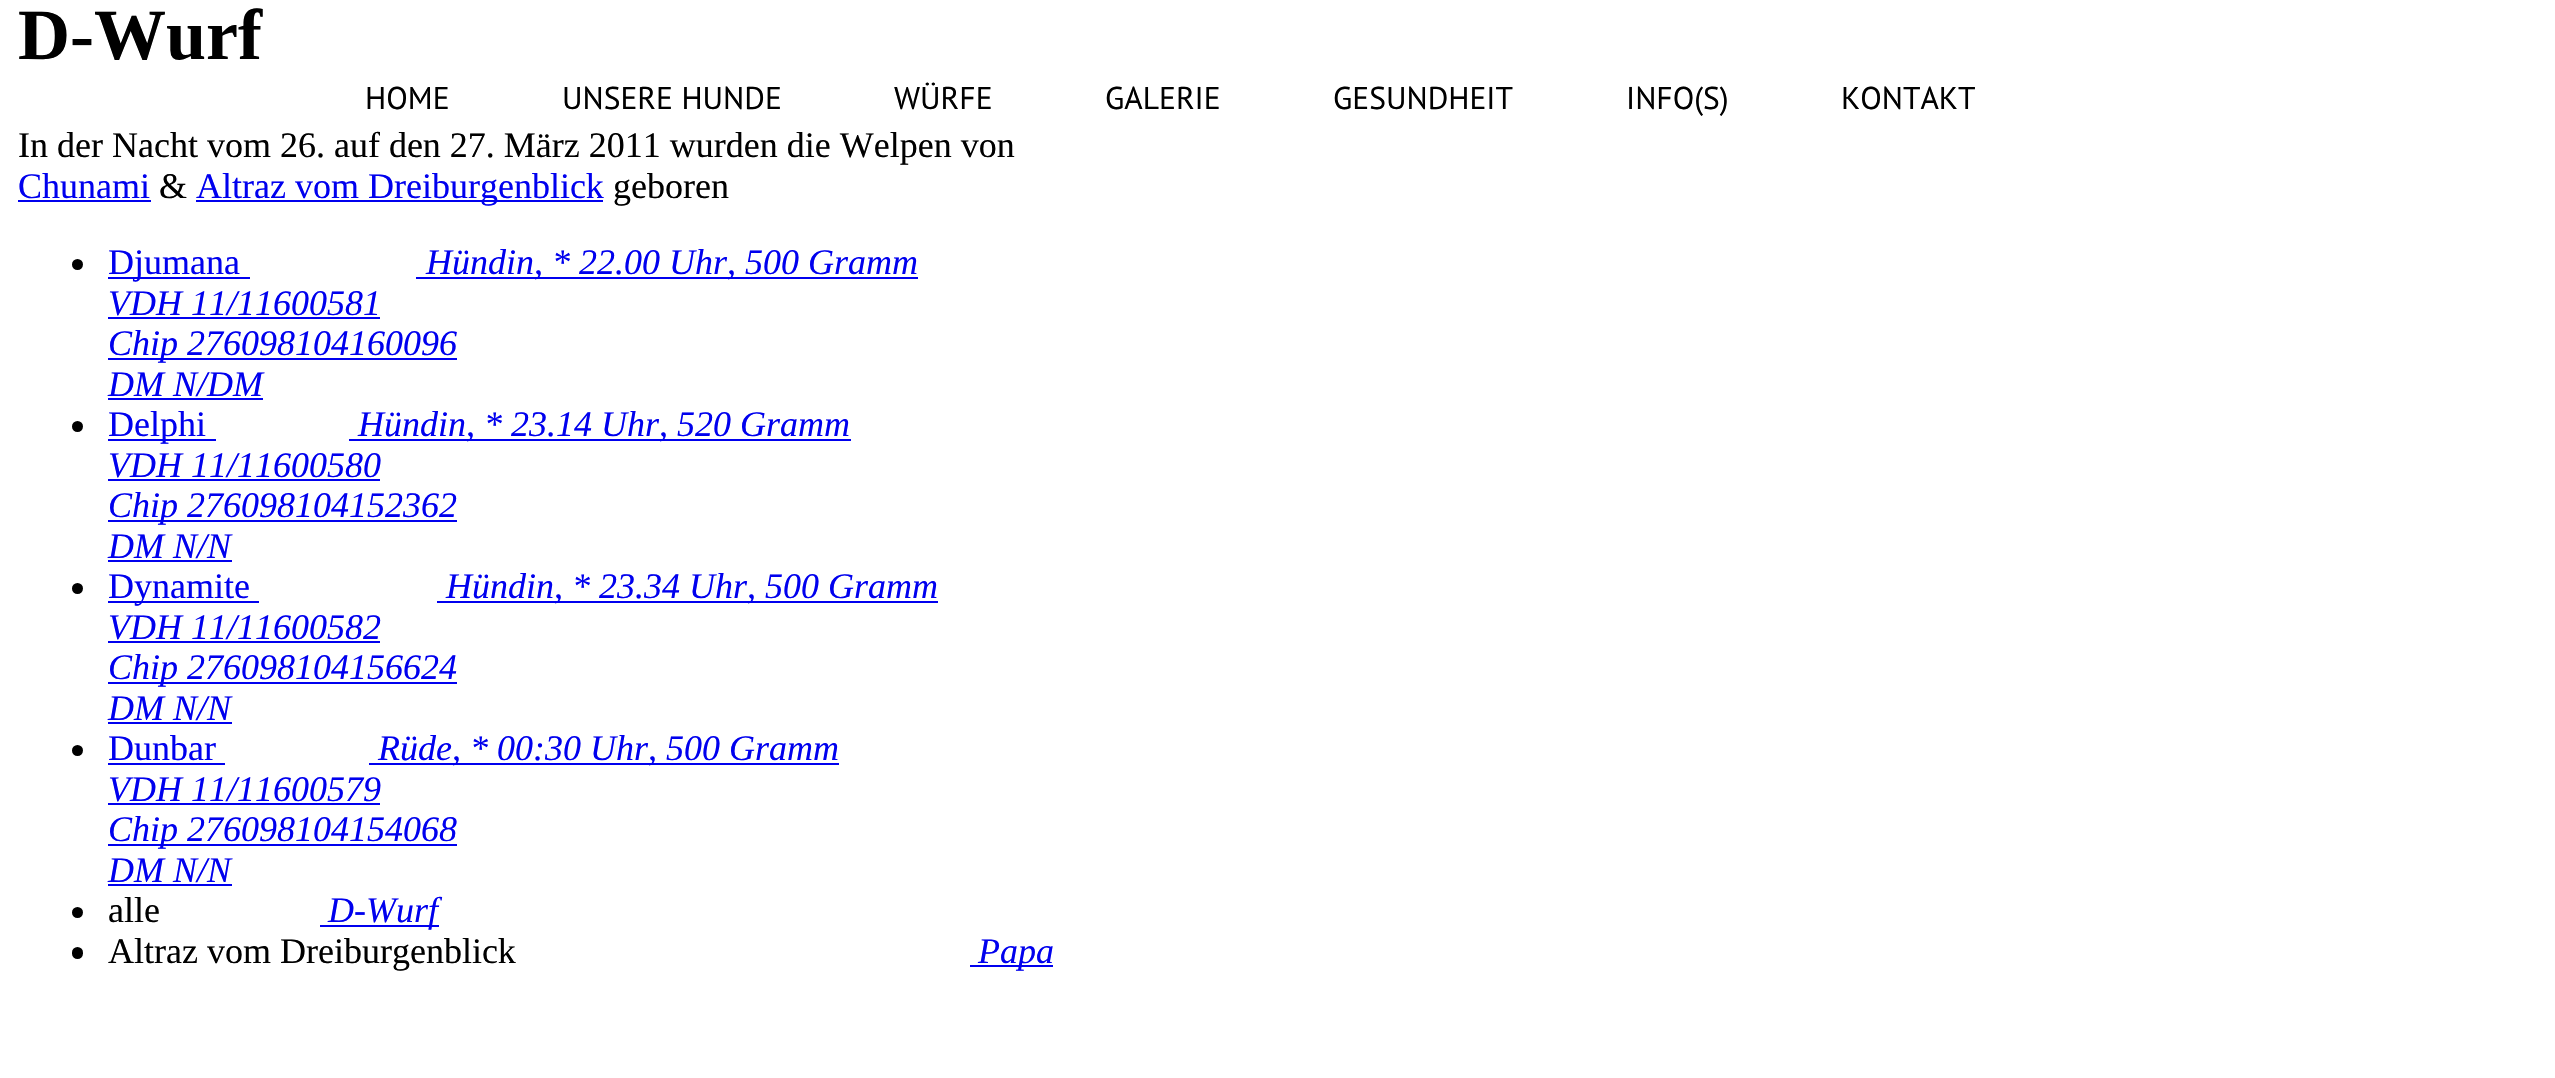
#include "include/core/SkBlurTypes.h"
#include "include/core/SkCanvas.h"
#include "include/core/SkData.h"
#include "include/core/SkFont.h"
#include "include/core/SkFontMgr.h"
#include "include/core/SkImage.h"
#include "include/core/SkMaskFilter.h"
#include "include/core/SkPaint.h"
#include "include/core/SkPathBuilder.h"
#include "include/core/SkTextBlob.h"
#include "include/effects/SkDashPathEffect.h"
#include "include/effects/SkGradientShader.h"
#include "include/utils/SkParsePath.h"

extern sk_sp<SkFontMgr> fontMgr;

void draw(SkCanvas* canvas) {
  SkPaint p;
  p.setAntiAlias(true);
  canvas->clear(SK_ColorWHITE);
  p.setColor(SkColorSetRGB(0, 0, 238));
  canvas->drawRect(SkRect::MakeLTRB(18, 200, 151, 202), p);
  canvas->drawRect(SkRect::MakeLTRB(196, 200, 603, 202), p);
  p.setColor(SK_ColorBLACK);
  canvas->drawCircle(77.5f, 264.5f, 5.5f, p);
  p.setColor(SkColorSetRGB(0, 0, 238));
  canvas->drawRect(SkRect::MakeLTRB(108, 277, 250, 279), p);
  canvas->drawRect(SkRect::MakeLTRB(416, 277, 918, 279), p);
  canvas->drawRect(SkRect::MakeLTRB(108, 317, 380, 319), p);
  canvas->drawRect(SkRect::MakeLTRB(108, 358, 457, 360), p);
  canvas->drawRect(SkRect::MakeLTRB(108, 398, 263, 400), p);
  p.setColor(SK_ColorBLACK);
  canvas->drawCircle(77.5f, 426.5f, 5.5f, p);
  p.setColor(SkColorSetRGB(0, 0, 238));
  canvas->drawRect(SkRect::MakeLTRB(108, 439, 216, 441), p);
  canvas->drawRect(SkRect::MakeLTRB(349, 439, 851, 441), p);
  canvas->drawRect(SkRect::MakeLTRB(108, 479, 380, 481), p);
  canvas->drawRect(SkRect::MakeLTRB(108, 520, 457, 522), p);
  canvas->drawRect(SkRect::MakeLTRB(108, 560, 232, 562), p);
  p.setColor(SK_ColorBLACK);
  canvas->drawCircle(77.5f, 588.5f, 5.5f, p);
  p.setColor(SkColorSetRGB(0, 0, 238));
  canvas->drawRect(SkRect::MakeLTRB(108, 601, 259, 603), p);
  canvas->drawRect(SkRect::MakeLTRB(437, 601, 938, 603), p);
  canvas->drawRect(SkRect::MakeLTRB(108, 641, 380, 643), p);
  canvas->drawRect(SkRect::MakeLTRB(108, 682, 457, 684), p);
  canvas->drawRect(SkRect::MakeLTRB(108, 722, 232, 724), p);
  p.setColor(SK_ColorBLACK);
  canvas->drawCircle(77.5f, 750.5f, 5.5f, p);
  p.setColor(SkColorSetRGB(0, 0, 238));
  canvas->drawRect(SkRect::MakeLTRB(108, 763, 225, 765), p);
  canvas->drawRect(SkRect::MakeLTRB(369, 763, 839, 765), p);
  canvas->drawRect(SkRect::MakeLTRB(108, 803, 380, 805), p);
  canvas->drawRect(SkRect::MakeLTRB(108, 844, 457, 846), p);
  canvas->drawRect(SkRect::MakeLTRB(108, 884, 232, 886), p);
  p.setColor(SK_ColorBLACK);
  canvas->drawCircle(77.5f, 912.5f, 5.5f, p);
  p.setColor(SkColorSetRGB(0, 0, 238));
  canvas->drawRect(SkRect::MakeLTRB(320, 925, 439, 927), p);
  p.setColor(SK_ColorBLACK);
  canvas->drawRoundRect(SkRect::MakeLTRB(72, 947, 83, 959), 5.5f, 5.5f, p);
  p.setColor(SkColorSetRGB(0, 0, 238));
  canvas->drawRect(SkRect::MakeLTRB(970, 965, 1053, 967), p);
  SkFont font1(fontMgr->matchFamilyStyle("Liberation Serif", SkFontStyle::Bold()), 72);
  font1.setSubpixel(true);
  p.setColor(SK_ColorBLACK);
  canvas->drawString("D-Wurf", 18, 59, font1, p);
  SkFont font2(fontMgr->matchFamilyStyle("Liberation Serif", SkFontStyle::Normal()), 36);
  font2.setSubpixel(true);
  canvas->drawString("In der Nacht vom 26. auf den 27. März 2011 wurden die Welpen von", 18, 157, font2, p);
  p.setColor(SkColorSetRGB(0, 0, 238));
  canvas->drawString("Chunami", 18, 198, font2, p);
  p.setColor(SK_ColorBLACK);
  canvas->drawString("&", 159, 198, font2, p);
  p.setColor(SkColorSetRGB(0, 0, 238));
  canvas->drawString("Altraz vom Dreiburgenblick", 196, 198, font2, p);
  p.setColor(SK_ColorBLACK);
  canvas->drawString("geboren", 613, 198, font2, p);
  p.setColor(SkColorSetRGB(0, 0, 238));
  canvas->drawString("Djumana", 108, 274, font2, p);
  SkFont font3(fontMgr->matchFamilyStyle("Liberation Serif", SkFontStyle::Italic()), 36);
  font3.setSubpixel(true);
  canvas->drawString("Hündin, * 22.00 Uhr, 500 Gramm", 426, 274, font3, p);
  canvas->drawString("VDH 11/11600581", 108, 315, font3, p);
  canvas->drawString("Chip 276098104160096", 108, 355, font3, p);
  canvas->drawString("DM N/DM", 108, 396, font3, p);
  canvas->drawString("Delphi", 108, 436, font2, p);
  canvas->drawString("Hündin, * 23.14 Uhr, 520 Gramm", 358, 436, font3, p);
  canvas->drawString("VDH 11/11600580", 108, 477, font3, p);
  canvas->drawString("Chip 276098104152362", 108, 517, font3, p);
  canvas->drawString("DM N/N", 108, 558, font3, p);
  canvas->drawString("Dynamite", 108, 598, font2, p);
  canvas->drawString("Hündin, * 23.34 Uhr, 500 Gramm", 446, 598, font3, p);
  canvas->drawString("VDH 11/11600582", 108, 639, font3, p);
  canvas->drawString("Chip 276098104156624", 108, 679, font3, p);
  canvas->drawString("DM N/N", 108, 720, font3, p);
  canvas->drawString("Dunbar", 108, 760, font2, p);
  canvas->drawString("Rüde, * 00:30 Uhr, 500 Gramm", 378, 760, font3, p);
  canvas->drawString("VDH 11/11600579", 108, 801, font3, p);
  canvas->drawString("Chip 276098104154068", 108, 841, font3, p);
  canvas->drawString("DM N/N", 108, 882, font3, p);
  p.setColor(SK_ColorBLACK);
  canvas->drawString("alle", 108, 922, font2, p);
  p.setColor(SkColorSetRGB(0, 0, 238));
  canvas->drawString("D-Wurf", 328, 922, font3, p);
  p.setColor(SK_ColorBLACK);
  canvas->drawString("Altraz vom Dreiburgenblick", 108, 963, font2, p);
  p.setColor(SkColorSetRGB(0, 0, 238));
  canvas->drawString("Papa", 978, 963, font3, p);
  SkFont font4(fontMgr->matchFamilyStyle("PT Sans", SkFontStyle::Normal()), 31.5f);
  font4.setSubpixel(true);
  p.setColor(SK_ColorBLACK);
  canvas->drawString("HOME", 365, 109, font4, p);
  canvas->drawString("UNSERE HUNDE", 562, 109, font4, p);
  canvas->drawString("WÜRFE", 894, 109, font4, p);
  canvas->drawString("GALERIE", 1105, 109, font4, p);
  canvas->drawString("GESUNDHEIT", 1333, 109, font4, p);
  canvas->drawString("INFO(S)", 1626, 109, font4, p);
  canvas->drawString("KONTAKT", 1841, 109, font4, p);
}
